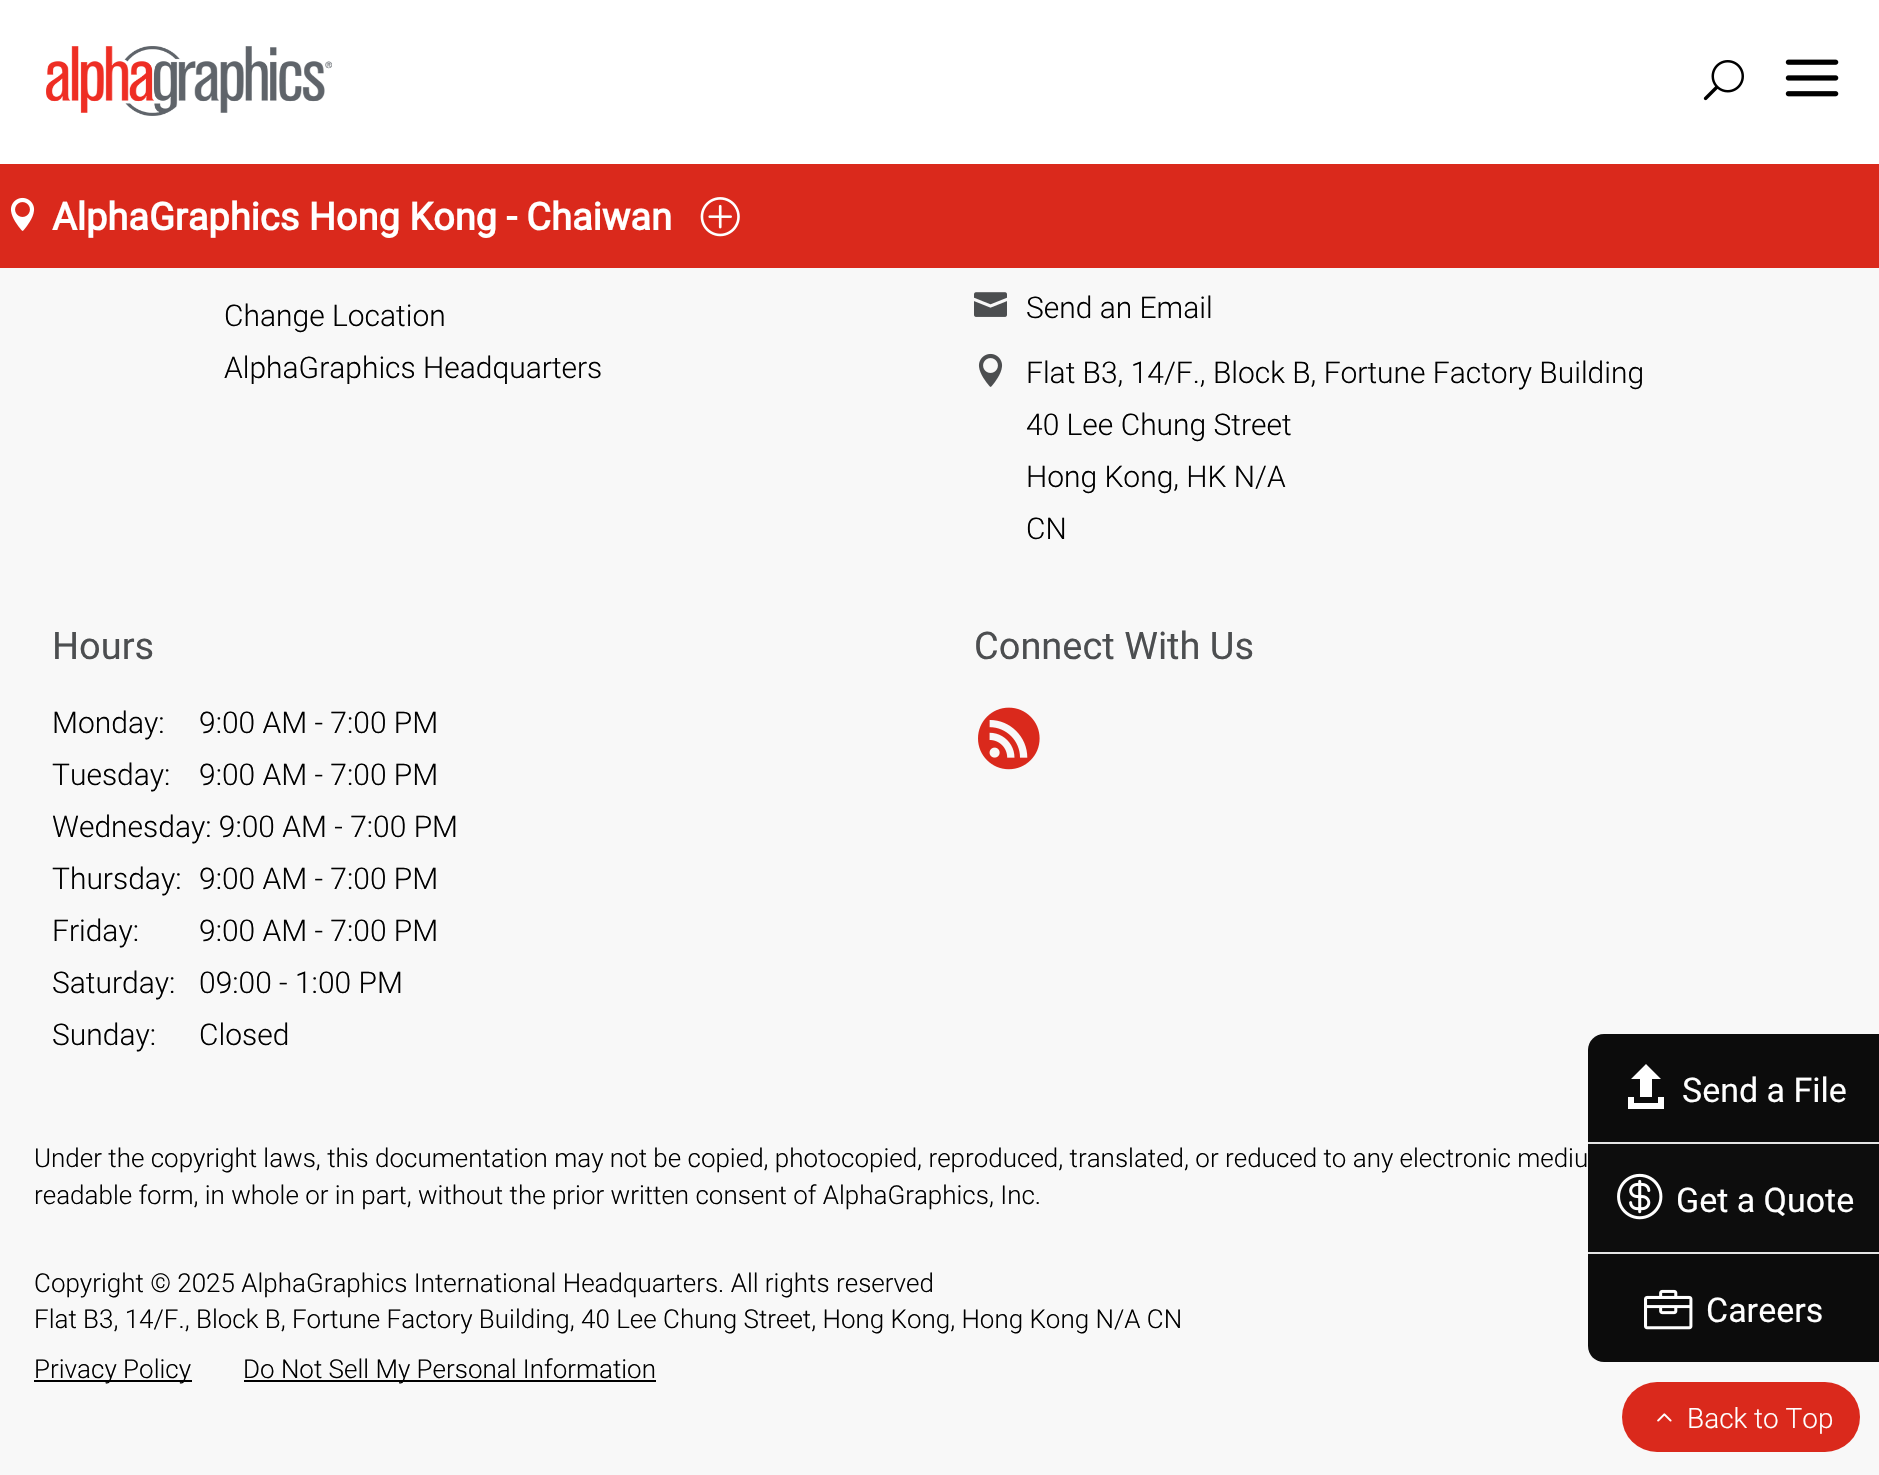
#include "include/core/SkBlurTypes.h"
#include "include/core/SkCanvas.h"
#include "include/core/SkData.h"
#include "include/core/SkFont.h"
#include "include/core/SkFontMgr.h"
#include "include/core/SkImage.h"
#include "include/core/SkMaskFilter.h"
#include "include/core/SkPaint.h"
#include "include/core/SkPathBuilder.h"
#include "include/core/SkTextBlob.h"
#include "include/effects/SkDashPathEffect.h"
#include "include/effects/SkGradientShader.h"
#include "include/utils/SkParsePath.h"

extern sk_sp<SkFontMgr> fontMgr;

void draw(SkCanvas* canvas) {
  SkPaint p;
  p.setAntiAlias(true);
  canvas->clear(SkColorSetRGB(248, 248, 248));
  p.setColor(SK_ColorWHITE);
  canvas->drawRect(SkRect::MakeLTRB(0, 0, 1879, 164), p);
  p.setColor(SkColorSetRGB(218, 41, 28));
  canvas->drawRect(SkRect::MakeLTRB(0, 164, 1879, 268), p);
  canvas->drawImageRect(SkImages::DeferredFromEncodedData(SkData::MakeFromFileName("images/1.png")), SkRect::MakeLTRB(10, 197, 35, 231), SkSamplingOptions());
  canvas->drawImageRect(SkImages::DeferredFromEncodedData(SkData::MakeFromFileName("images/2.png")), SkRect::MakeLTRB(700, 197, 740, 237), SkSamplingOptions());
  canvas->drawImageRect(SkImages::DeferredFromEncodedData(SkData::MakeFromFileName("images/3.png")), SkRect::MakeLTRB(46, 46, 332, 116), SkSamplingOptions());
  canvas->drawImageRect(SkImages::DeferredFromEncodedData(SkData::MakeFromFileName("images/4.png")), SkRect::MakeLTRB(1703, 60, 1744, 101), SkSamplingOptions());
  canvas->drawImageRect(SkImages::DeferredFromEncodedData(SkData::MakeFromFileName("images/5.png")), SkRect::MakeLTRB(1785, 59, 1839, 97), SkSamplingOptions());
  p.setColor(SkColorSetRGB(12, 12, 12));
  canvas->drawPath(SkPathBuilder().moveTo(1604, 1034).lineTo(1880, 1034).lineTo(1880, 1144).lineTo(1588, 1144).lineTo(1588, 1050).cubicTo(1588, 1041, 1595, 1034, 1604, 1034).close().detach(), p);
  p.setColor(SkColorSetRGB(229, 229, 229));
  canvas->drawRect(SkRect::MakeLTRB(1588, 1142, 1879, 1144), p);
  p.setColor(SK_ColorWHITE);
  canvas->drawPath(SkPathBuilder().moveTo(1631, 1079).lineTo(1640, 1079).lineTo(1640, 1097).lineTo(1652, 1097).lineTo(1652, 1079).lineTo(1661, 1079).lineTo(1646, 1064).close().moveTo(1658, 1103).lineTo(1634, 1103).lineTo(1634, 1097).lineTo(1628, 1097).lineTo(1628, 1109).lineTo(1664, 1109).lineTo(1664, 1097).lineTo(1658, 1097).close().detach(), p);
  p.setColor(SkColorSetARGB(242, 0, 0, 0));
  canvas->drawRect(SkRect::MakeLTRB(1588, 1144, 1879, 1252), p);
  p.setColor(SkColorSetRGB(229, 229, 229));
  canvas->drawRect(SkRect::MakeLTRB(1588, 1252, 1879, 1254), p);
  canvas->drawImageRect(SkImages::DeferredFromEncodedData(SkData::MakeFromFileName("images/6.png")), SkRect::MakeLTRB(1617, 1173, 1663, 1220), SkSamplingOptions());
  p.setColor(SkColorSetRGB(12, 12, 12));
  canvas->drawPath(SkPathBuilder().moveTo(1588, 1254).lineTo(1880, 1254).lineTo(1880, 1362).lineTo(1604, 1362).cubicTo(1595, 1362, 1588, 1355, 1588, 1346).close().detach(), p);
  canvas->drawImageRect(SkImages::DeferredFromEncodedData(SkData::MakeFromFileName("images/7.png")), SkRect::MakeLTRB(1644, 1289, 1693, 1330), SkSamplingOptions());
  canvas->drawImageRect(SkImages::DeferredFromEncodedData(SkData::MakeFromFileName("images/8.png")), SkRect::MakeLTRB(974, 292, 1007, 317), SkSamplingOptions());
  canvas->drawImageRect(SkImages::DeferredFromEncodedData(SkData::MakeFromFileName("images/9.png")), SkRect::MakeLTRB(978, 353, 1003, 387), SkSamplingOptions());
  canvas->drawImageRect(SkImages::DeferredFromEncodedData(SkData::MakeFromFileName("images/10.png")), SkRect::MakeLTRB(978, 707, 1040, 770), SkSamplingOptions());
  p.setColor(SK_ColorBLACK);
  canvas->drawRect(SkRect::MakeLTRB(34, 1380, 192, 1382), p);
  canvas->drawRect(SkRect::MakeLTRB(244, 1380, 656, 1382), p);
  p.setColor(SkColorSetRGB(218, 41, 28));
  canvas->drawRoundRect(SkRect::MakeLTRB(1622, 1382, 1860, 1452), 35, 35, p);
  canvas->drawImageRect(SkImages::DeferredFromEncodedData(SkData::MakeFromFileName("images/11.png")), SkRect::MakeLTRB(1657, 1413, 1672, 1422), SkSamplingOptions());
  SkFont font1(fontMgr->matchFamilyStyle("Roboto", SkFontStyle::Bold()), 38);
  font1.setSubpixel(true);
  p.setColor(SK_ColorWHITE);
  canvas->drawString("AlphaGraphics Hong Kong - Chaiwan", 52, 230, font1, p);
  SkFont font2(fontMgr->matchFamilyStyle("Roboto", SkFontStyle::Normal()), 34);
  font2.setSubpixel(true);
  canvas->drawString("Send a File", 1682, 1102, font2, p);
  canvas->drawString("Get a Quote", 1676, 1212, font2, p);
  canvas->drawString("Careers", 1706, 1322, font2, p);
  SkFont font3(fontMgr->matchFamilyStyle("Roboto", SkFontStyle(300, SkFontStyle::kNormal_Width, SkFontStyle::kUpright_Slant)), 30);
  font3.setSubpixel(true);
  p.setColor(SK_ColorBLACK);
  canvas->drawString("Change Location", 224, 326, font3, p);
  canvas->drawString("AlphaGraphics Headquarters", 224, 378, font3, p);
  canvas->drawString("Send an Email", 1026, 318, font3, p);
  canvas->drawString("Flat B3, 14/F., Block B, Fortune Factory Building", 1026, 383, font3, p);
  canvas->drawString("40 Lee Chung Street", 1026, 435, font3, p);
  canvas->drawString("Hong Kong, HK N/A", 1026, 487, font3, p);
  canvas->drawString("CN", 1026, 539, font3, p);
  SkFont font4(fontMgr->matchFamilyStyle("Roboto", SkFontStyle::Normal()), 38);
  font4.setSubpixel(true);
  p.setColor(SkColorSetRGB(76, 78, 80));
  canvas->drawString("Hours", 52, 659, font4, p);
  p.setColor(SK_ColorBLACK);
  canvas->drawString("Monday:", 52, 733, font3, p);
  canvas->drawString("9:00 AM - 7:00 PM", 199, 733, font3, p);
  canvas->drawString("Tuesday:", 52, 785, font3, p);
  canvas->drawString("9:00 AM - 7:00 PM", 199, 785, font3, p);
  canvas->drawString("Wednesday: 9:00 AM - 7:00 PM", 52, 837, font3, p);
  canvas->drawString("Thursday:", 52, 889, font3, p);
  canvas->drawString("9:00 AM - 7:00 PM", 199, 889, font3, p);
  canvas->drawString("Friday:", 52, 941, font3, p);
  canvas->drawString("9:00 AM - 7:00 PM", 199, 941, font3, p);
  canvas->drawString("Saturday:", 52, 993, font3, p);
  canvas->drawString("09:00 - 1:00 PM", 199, 993, font3, p);
  canvas->drawString("Sunday:", 52, 1045, font3, p);
  canvas->drawString("Closed", 199, 1045, font3, p);
  p.setColor(SkColorSetRGB(76, 78, 80));
  canvas->drawString("Connect With Us", 974, 659, font4, p);
  SkFont font5(fontMgr->matchFamilyStyle("Roboto", SkFontStyle(300, SkFontStyle::kNormal_Width, SkFontStyle::kUpright_Slant)), 26);
  font5.setSubpixel(true);
  p.setColor(SK_ColorBLACK);
  canvas->drawString("Under the copyright laws, this documentation may not be copied, photocopied, reproduced, translated, or reduced to any electronic mediu", 34, 1167, font5, p);
  canvas->drawString("readable form, in whole or in part, without the prior written consent of AlphaGraphics, Inc.", 34, 1204, font5, p);
  canvas->drawString("Copyright © 2025 AlphaGraphics International Headquarters. All rights reserved", 34, 1292, font5, p);
  canvas->drawString("Flat B3, 14/F., Block B, Fortune Factory Building, 40 Lee Chung Street, Hong Kong, Hong Kong N/A CN", 34, 1328, font5, p);
  canvas->drawString("Privacy Policy", 34, 1378, font5, p);
  canvas->drawString("Do Not Sell My Personal Information", 243, 1378, font5, p);
  SkFont font6(fontMgr->matchFamilyStyle("Roboto", SkFontStyle(300, SkFontStyle::kNormal_Width, SkFontStyle::kUpright_Slant)), 28);
  font6.setSubpixel(true);
  p.setColor(SK_ColorWHITE);
  canvas->drawString("Back to Top", 1687, 1428, font6, p);
}
